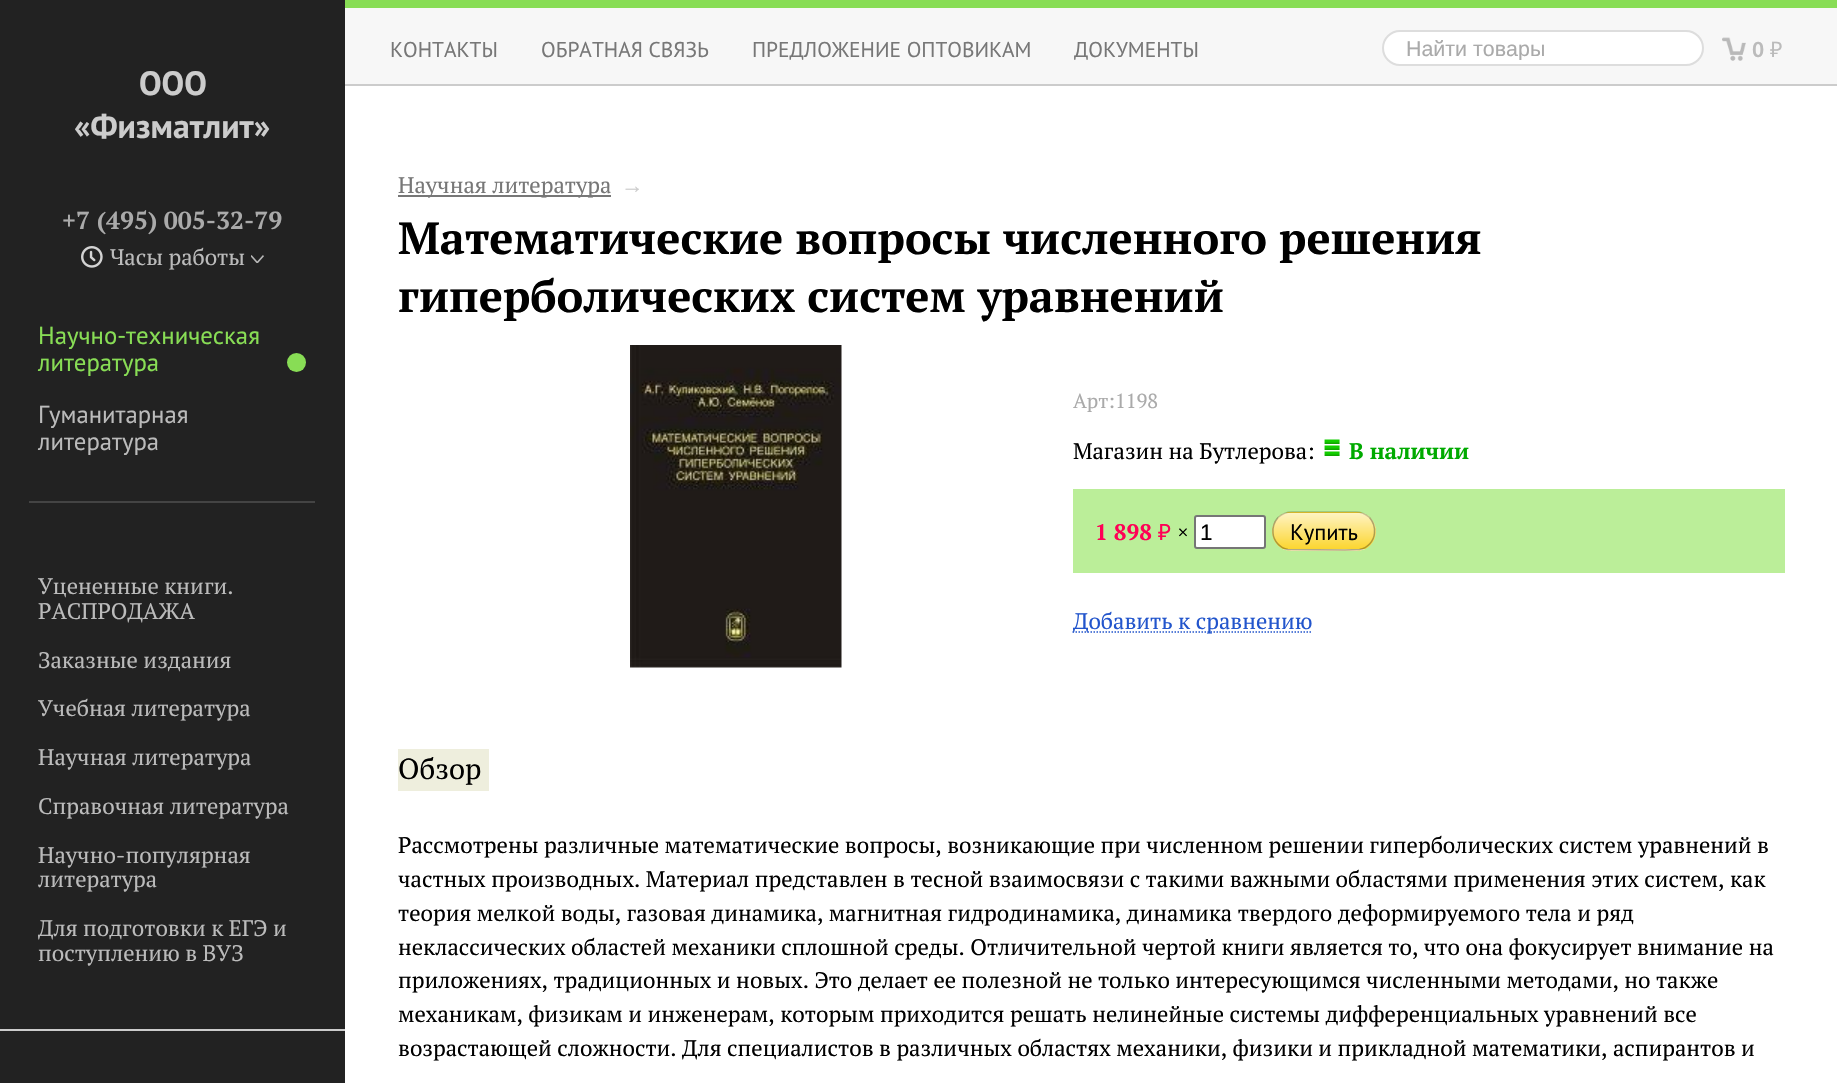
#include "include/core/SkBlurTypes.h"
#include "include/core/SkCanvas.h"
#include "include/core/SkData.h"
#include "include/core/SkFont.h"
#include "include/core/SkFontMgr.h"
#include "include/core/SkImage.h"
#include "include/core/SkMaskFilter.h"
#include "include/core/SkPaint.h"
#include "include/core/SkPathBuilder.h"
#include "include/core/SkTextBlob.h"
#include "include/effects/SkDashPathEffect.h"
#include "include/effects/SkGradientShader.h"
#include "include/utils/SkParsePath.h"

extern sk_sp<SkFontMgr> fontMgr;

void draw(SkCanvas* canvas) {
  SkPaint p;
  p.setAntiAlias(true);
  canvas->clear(SkColorSetRGB(34, 34, 34));
  canvas->drawImageRect(SkImages::DeferredFromEncodedData(SkData::MakeFromFileName("images/1.png")), SkRect::MakeLTRB(81, 246, 103, 268), SkSamplingOptions());
  canvas->drawImageRect(SkImages::DeferredFromEncodedData(SkData::MakeFromFileName("images/2.png")), SkRect::MakeLTRB(251, 255, 264, 263), SkSamplingOptions());
  p.setColor(SkColorSetRGB(68, 68, 68));
  canvas->drawRect(SkRect::MakeLTRB(29, 501, 315, 503), p);
  p.setColor(SkColorSetRGB(136, 221, 85));
  canvas->drawCircle(296.5f, 362.5f, 9.5f, p);
  p.setColor(SkColorSetRGB(204, 204, 204));
  canvas->drawRect(SkRect::MakeLTRB(0, 1029, 345, 1031), p);
  p.setColor(SK_ColorWHITE);
  canvas->drawRect(SkRect::MakeLTRB(345, 86, 1837, 1083), p);
  p.setColor(SkColorSetRGB(136, 221, 85));
  canvas->drawRect(SkRect::MakeLTRB(345, 0, 1837, 8), p);
  p.setColor(SkColorSetRGB(247, 247, 247));
  canvas->drawRect(SkRect::MakeLTRB(345, 8, 1837, 84), p);
  p.setColor(SkColorSetRGB(204, 204, 204));
  canvas->drawRect(SkRect::MakeLTRB(345, 84, 1837, 86), p);
  p.setColor(SK_ColorWHITE);
  canvas->drawRoundRect(SkRect::MakeLTRB(1383, 31, 1703, 65), 17, 17, p);
  p.setStyle(SkPaint::kStroke_Style);
  p.setStrokeWidth(2);
  p.setColor(SkColorSetRGB(221, 221, 221));
  canvas->drawRoundRect(SkRect::MakeLTRB(1383, 31, 1703, 65), 17, 17, p);
  canvas->drawImageRect(SkImages::DeferredFromEncodedData(SkData::MakeFromFileName("images/3.png")), SkRect::MakeLTRB(1722, 37, 1746, 61), SkSamplingOptions());
  p.setStyle(SkPaint::kFill_Style);
  p.setColor(SkColorSetRGB(119, 119, 119));
  canvas->drawRect(SkRect::MakeLTRB(398, 195, 611, 197), p);
  canvas->drawImageRect(SkImages::DeferredFromEncodedData(SkData::MakeFromFileName("images/4.png")), SkRect::MakeLTRB(630, 345, 842, 668), SkSamplingOptions());
  canvas->drawImageRect(SkImages::DeferredFromEncodedData(SkData::MakeFromFileName("images/5.png")), SkRect::MakeLTRB(1324, 439, 1340, 456), SkSamplingOptions());
  p.setColor(SkColorSetRGB(187, 238, 153));
  canvas->drawRect(SkRect::MakeLTRB(1073, 489, 1785, 573), p);
  p.setColor(SK_ColorWHITE);
  canvas->drawRoundRect(SkRect::MakeLTRB(1195, 516, 1265, 548), 2, 2, p);
  p.setStyle(SkPaint::kStroke_Style);
  p.setColor(SkColorSetRGB(118, 118, 118));
  canvas->drawRoundRect(SkRect::MakeLTRB(1195, 516, 1265, 548), 2, 2, p);
  p.setStyle(SkPaint::kFill_Style);
  p.setColor(SkColorSetRGB(252, 214, 48));
  canvas->drawRoundRect(SkRect::MakeLTRB(1272, 512, 1376, 551), 19.5f, 19.5f, p);
  canvas->save();
  canvas->clipPath(SkPathBuilder().moveTo(1291.5f, 512).lineTo(1356.5f, 512).cubicTo(1367.5f, 512, 1376, 520.5f, 1376, 531.5f).cubicTo(1376, 542.5f, 1367.5f, 551, 1356.5f, 551).lineTo(1291.5f, 551).cubicTo(1280.5f, 551, 1272, 542.5f, 1272, 531.5f).cubicTo(1272, 520.5f, 1280.5f, 512, 1291.5f, 512).close().detach(), true);
  {
    const SkColor colors[] = {SkColorSetARGB(179, 255, 255, 255), SkColorSetARGB(0, 255, 255, 255)};
    const float stops[] = {0, 1};
    const SkPoint ends[] = {{1324, 513}, {1324, 549}};
    p.setShader(SkGradientShader::MakeLinear(ends, colors, stops, 2, SkTileMode::kClamp));
    p.setAlpha(255);
  }
  canvas->drawRect(SkRect::MakeLTRB(1272, 513, 1376, 548), p);
  {
    const SkColor colors[] = {SkColorSetARGB(179, 255, 255, 255), SkColorSetARGB(0, 255, 255, 255)};
    const float stops[] = {0, 1};
    const SkPoint ends[] = {{1324, 549}, {1324, 585}};
    p.setShader(SkGradientShader::MakeLinear(ends, colors, stops, 2, SkTileMode::kClamp));
    p.setAlpha(255);
  }
  canvas->drawRect(SkRect::MakeLTRB(1283, 549, 1365, 551), p);
  canvas->restore();
  p.setStyle(SkPaint::kStroke_Style);
  p.setStrokeWidth(1.5f);
  p.setShader(nullptr);
  p.setColor(SkColorSetARGB(51, 0, 0, 0));
  canvas->drawPath(SkPathBuilder().moveTo(1278, 517.5f).cubicTo(1282, 514, 1286.5f, 512, 1291.5f, 512).lineTo(1356, 512).cubicTo(1361, 512, 1365.5f, 514, 1369.5f, 517.5f).detach(), p);
  p.setColor(SkColorSetARGB(77, 0, 0, 0));
  canvas->drawPath(SkPathBuilder().moveTo(1369.5f, 517.5f).cubicTo(1373, 521.5f, 1375, 527.5f, 1374.5f, 533).cubicTo(1374, 541, 1367.5f, 548, 1359.5f, 549.5f).lineTo(1345, 550).lineTo(1288, 549.5f).cubicTo(1280, 548, 1273.5f, 541, 1273, 533).cubicTo(1272.5f, 527.5f, 1274.5f, 521.5f, 1278, 517.5f).detach(), p);
  p.setColor(SkColorSetRGB(34, 85, 204));
  p.setPathEffect(SkDashPathEffect::Make({{1.5f, 1.5f}}, 0));
  canvas->drawPath(SkPathBuilder().moveTo(1072.5f, 632).lineTo(1312.5f, 632).detach(), p);
  p.setPathEffect(nullptr);
  p.setStyle(SkPaint::kFill_Style);
  p.setColor(SkColorSetRGB(238, 238, 221));
  canvas->drawRect(SkRect::MakeLTRB(398, 749, 489, 791), p);
  SkFont font1(fontMgr->matchFamilyStyle("PT Sans", SkFontStyle::Bold()), 33.75f);
  font1.setSubpixel(true);
  p.setColor(SkColorSetRGB(204, 204, 204));
  canvas->drawString("ООО", 139, 95, font1, p);
  canvas->drawString("«Физматлит»", 74, 138, font1, p);
  SkFont font2(fontMgr->matchFamilyStyle("PT Serif", SkFontStyle::Bold()), 24.75f);
  font2.setSubpixel(true);
  p.setColor(SkColorSetRGB(170, 170, 170));
  canvas->drawString("+7 (495) 005-32-79", 62, 229, font2, p);
  SkFont font3(fontMgr->matchFamilyStyle("PT Serif", SkFontStyle::Normal()), 22.5f);
  font3.setSubpixel(true);
  p.setColor(SkColorSetRGB(187, 187, 187));
  canvas->drawString("Часы работы", 110, 265, font3, p);
  SkFont font4(fontMgr->matchFamilyStyle("PT Sans", SkFontStyle::Normal()), 24.75f);
  font4.setSubpixel(true);
  p.setColor(SkColorSetRGB(136, 221, 85));
  canvas->drawString("Научно-техническая", 38, 344, font4, p);
  canvas->drawString("литература", 38, 371, font4, p);
  p.setColor(SkColorSetRGB(187, 187, 187));
  canvas->drawString("Гуманитарная", 38, 423, font4, p);
  canvas->drawString("литература", 38, 450, font4, p);
  canvas->drawString("Уцененные книги.", 38, 594, font3, p);
  canvas->drawString("РАСПРОДАЖА", 38, 619, font3, p);
  canvas->drawString("Заказные издания", 38, 668, font3, p);
  canvas->drawString("Учебная литература", 38, 716, font3, p);
  canvas->drawString("Научная литература", 38, 765, font3, p);
  canvas->drawString("Справочная литература", 38, 814, font3, p);
  canvas->drawString("Научно-популярная", 38, 863, font3, p);
  canvas->drawString("литература", 38, 887, font3, p);
  canvas->drawString("Для подготовки к ЕГЭ и", 38, 936, font3, p);
  canvas->drawString("поступлению в ВУЗ", 38, 961, font3, p);
  SkFont font5(fontMgr->matchFamilyStyle("PT Sans", SkFontStyle::Normal()), 21.4f);
  font5.setSubpixel(true);
  p.setColor(SkColorSetRGB(119, 119, 119));
  canvas->drawString("КОНТАКТЫ", 390, 57, font5, p);
  canvas->drawString("ОБРАТНАЯ СВЯЗЬ", 541, 57, font5, p);
  canvas->drawString("ПРЕДЛОЖЕНИЕ ОПТОВИКАМ", 752, 57, font5, p);
  canvas->drawString("ДОКУМЕНТЫ", 1074, 57, font5, p);
  canvas->save();
  canvas->clipRect(SkRect::MakeLTRB(1406, 36, 1659, 60));
  SkFont font6(fontMgr->matchFamilyStyle("Liberation Sans", SkFontStyle::Normal()), 21.4f);
  font6.setSubpixel(true);
  p.setColor(SkColorSetRGB(170, 170, 170));
  canvas->drawString("Найти товары", 1406, 56, font6, p);
  canvas->restore();
  SkFont font7(fontMgr->matchFamilyStyle("PT Sans", SkFontStyle::Bold()), 21.4f);
  font7.setSubpixel(true);
  p.setColor(SkColorSetRGB(187, 187, 187));
  canvas->drawString("0", 1752, 57, font7, p);
  SkFont font8(fontMgr->matchFamilyStyle("Noto Sans", SkFontStyle::Normal()), 21.4f);
  font8.setSubpixel(true);
  canvas->drawString("₽", 1770, 57, font8, p);
  p.setColor(SkColorSetRGB(119, 119, 119));
  canvas->drawString("Научная литература", 398, 193, font3, p);
  SkFont font9(fontMgr->matchFamilyStyle("Liberation Serif", SkFontStyle::Normal()), 22.5f);
  font9.setSubpixel(true);
  p.setColor(SkColorSetRGB(204, 204, 204));
  canvas->drawString("→", 621, 193, font9, p);
  SkFont font10(fontMgr->matchFamilyStyle("PT Serif", SkFontStyle::Bold()), 45);
  font10.setSubpixel(true);
  p.setColor(SK_ColorBLACK);
  canvas->drawString("Математические вопросы численного решения", 398, 254, font10, p);
  canvas->drawString("гиперболических систем уравнений", 398, 312, font10, p);
  SkFont font11(fontMgr->matchFamilyStyle("PT Serif", SkFontStyle::Normal()), 20.25f);
  font11.setSubpixel(true);
  p.setColor(SkColorSetRGB(170, 170, 170));
  canvas->drawString("Арт:1198", 1073, 408, font11, p);
  p.setColor(SK_ColorBLACK);
  canvas->drawString("Магазин на Бутлерова:", 1073, 459, font3, p);
  SkFont font12(fontMgr->matchFamilyStyle("PT Serif", SkFontStyle::Bold()), 22.5f);
  font12.setSubpixel(true);
  p.setColor(SkColorSetRGB(0, 170, 0));
  canvas->drawString("В наличии", 1349, 459, font12, p);
  p.setColor(SkColorSetRGB(255, 0, 85));
  canvas->drawString("1 898", 1095, 540, font12, p);
  SkFont font13(fontMgr->matchFamilyStyle("Noto Sans", SkFontStyle::Normal()), 22.5f);
  font13.setSubpixel(true);
  canvas->drawString("₽", 1158, 540, font13, p);
  p.setColor(SK_ColorBLACK);
  canvas->drawString("×", 1177, 540, font3, p);
  SkFont font14(fontMgr->matchFamilyStyle("Liberation Sans", SkFontStyle::Normal()), 22.5f);
  font14.setSubpixel(true);
  canvas->drawString("1", 1200, 540, font14, p);
  SkFont font15(fontMgr->matchFamilyStyle("PT Sans", SkFontStyle::Normal()), 22.5f);
  font15.setSubpixel(true);
  canvas->drawString("Купить", 1290, 540, font15, p);
  canvas->save();
  canvas->clipRect(SkRect::MakeLTRB(1073, 345, 1785, 675));
  p.setColor(SkColorSetRGB(34, 85, 204));
  canvas->drawString("Добавить к сравнению", 1073, 629, font3, p);
  canvas->restore();
  SkFont font16(fontMgr->matchFamilyStyle("PT Serif", SkFontStyle::Normal()), 29);
  font16.setSubpixel(true);
  p.setColor(SK_ColorBLACK);
  canvas->drawString("Обзор", 398, 779, font16, p);
  canvas->drawString("Рассмотрены различные математические вопросы, возникающие при численном решении гиперболических систем уравнений в", 398, 853, font3, p);
  canvas->drawString("частных производных. Материал представлен в тесной взаимосвязи с такими важными областями применения этих систем, как", 398, 887, font3, p);
  canvas->drawString("теория мелкой воды, газовая динамика, магнитная гидродинамика, динамика твердого деформируемого тела и ряд", 398, 921, font3, p);
  canvas->drawString("неклассических областей механики сплошной среды. Отличительной чертой книги является то, что она фокусирует внимание на", 398, 955, font3, p);
  canvas->drawString("приложениях, традиционных и новых. Это делает ее полезной не только интересующимся численными методами, но также", 398, 988, font3, p);
  canvas->drawString("механикам, физикам и инженерам, которым приходится решать нелинейные системы дифференциальных уравнений все", 398, 1022, font3, p);
  canvas->drawString("возрастающей сложности. Для специалистов в различных областях механики, физики и прикладной математики, аспирантов и", 398, 1056, font3, p);
}
